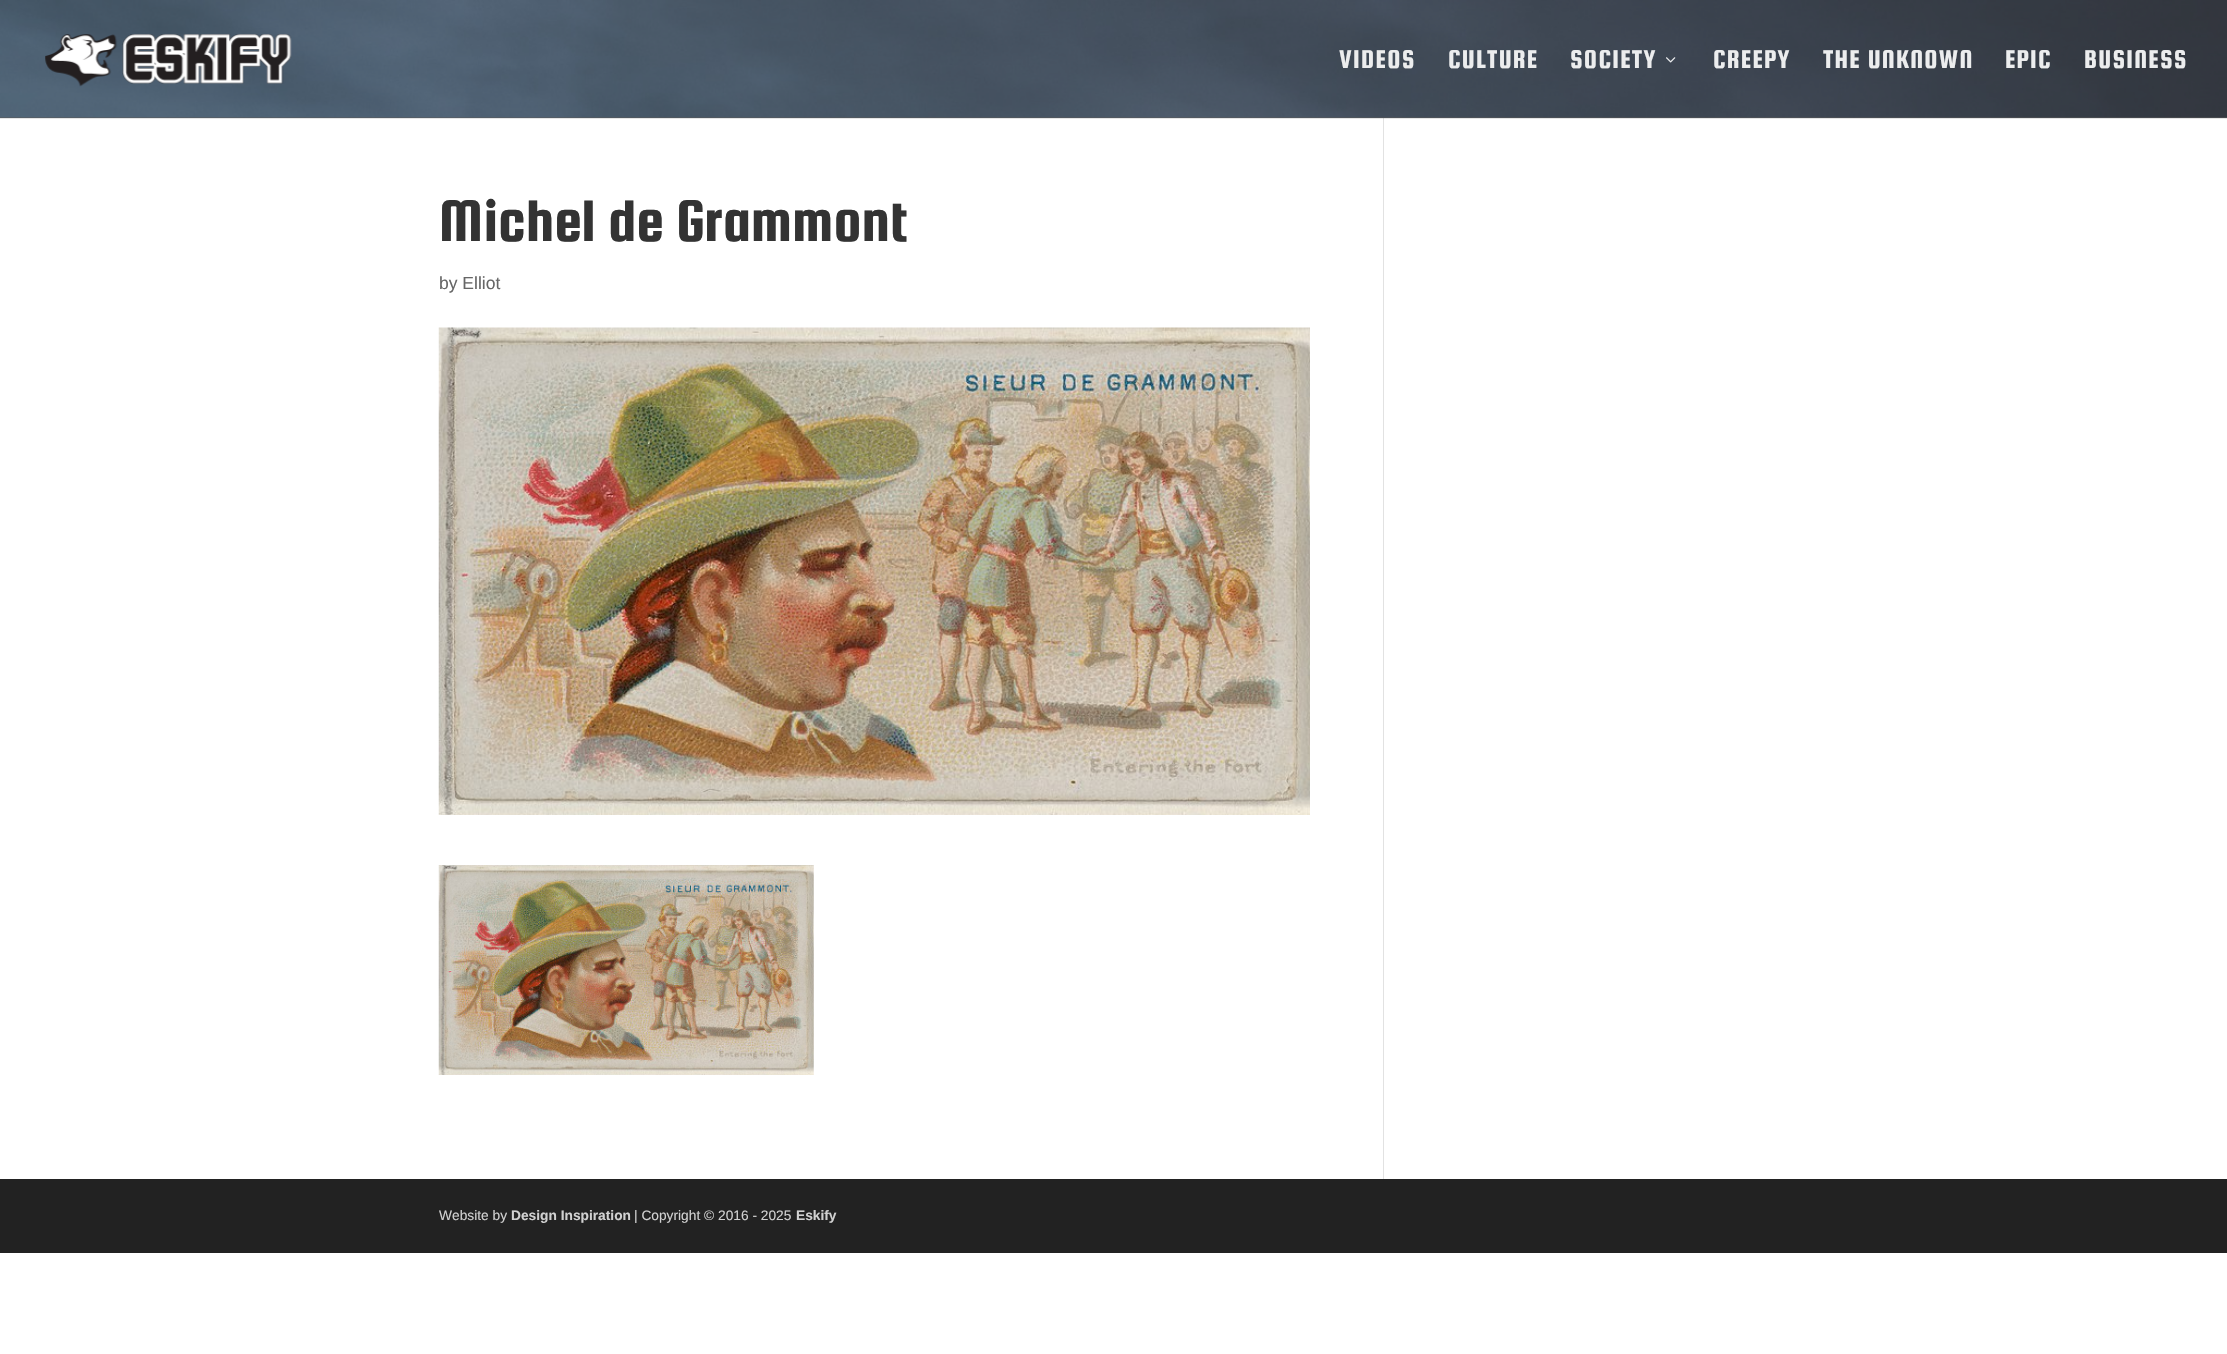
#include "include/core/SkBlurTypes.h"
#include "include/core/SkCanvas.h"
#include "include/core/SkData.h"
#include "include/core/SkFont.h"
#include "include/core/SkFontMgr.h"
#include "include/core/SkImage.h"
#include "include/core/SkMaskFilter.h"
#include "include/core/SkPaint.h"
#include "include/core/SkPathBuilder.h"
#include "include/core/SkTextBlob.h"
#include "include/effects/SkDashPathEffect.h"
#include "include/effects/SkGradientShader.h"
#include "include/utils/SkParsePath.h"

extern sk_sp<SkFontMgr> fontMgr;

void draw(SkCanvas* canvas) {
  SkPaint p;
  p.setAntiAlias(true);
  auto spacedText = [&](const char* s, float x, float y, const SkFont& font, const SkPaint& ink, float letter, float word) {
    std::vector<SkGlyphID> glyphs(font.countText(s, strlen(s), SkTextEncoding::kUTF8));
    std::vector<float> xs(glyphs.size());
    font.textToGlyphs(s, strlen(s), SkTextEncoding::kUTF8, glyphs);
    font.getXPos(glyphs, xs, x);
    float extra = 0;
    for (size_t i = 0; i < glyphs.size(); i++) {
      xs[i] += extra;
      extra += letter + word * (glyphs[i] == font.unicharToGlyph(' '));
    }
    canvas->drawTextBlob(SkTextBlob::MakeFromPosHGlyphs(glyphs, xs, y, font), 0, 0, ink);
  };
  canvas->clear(SK_ColorWHITE);
  p.setColor(SkColorSetRGB(226, 226, 226));
  canvas->drawRect(SkRect::MakeLTRB(1383, 118, 1384, 1179), p);
  p.setColor(SkColorSetARGB(26, 0, 0, 0));
  canvas->drawPath(SkPathBuilder().moveTo(0, 118).lineTo(0, 119).lineTo(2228, 119).lineTo(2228, 1).lineTo(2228, 118).close().detach(), p);
  p.setColor(SkColorSetRGB(91, 91, 91));
  canvas->drawRect(SkRect::MakeLTRB(0, 0, 2227, 118), p);
  canvas->drawImageRect(SkImages::DeferredFromEncodedData(SkData::MakeFromFileName("images/1.png")), SkRect::MakeLTRB(0, 0, 2227, 118), SkSamplingOptions());
  canvas->drawImageRect(SkImages::DeferredFromEncodedData(SkData::MakeFromFileName("images/2.png")), SkRect::MakeLTRB(45, 34, 292, 87), SkSamplingOptions());
  canvas->drawImageRect(SkImages::DeferredFromEncodedData(SkData::MakeFromFileName("images/3.png")), SkRect::MakeLTRB(1666, 57, 1676, 63), SkSamplingOptions());
  canvas->drawImageRect(SkImages::DeferredFromEncodedData(SkData::MakeFromFileName("images/4.png")), SkRect::MakeLTRB(438, 327, 1310, 815), SkSamplingOptions());
  canvas->drawImageRect(SkImages::DeferredFromEncodedData(SkData::MakeFromFileName("images/5.png")), SkRect::MakeLTRB(438, 865, 814, 1075), SkSamplingOptions());
  p.setColor(SkColorSetRGB(34, 34, 34));
  canvas->drawRect(SkRect::MakeLTRB(0, 1179, 2227, 1253), p);
  SkFont font1(fontMgr->matchFamilyStyle("Squada One", SkFontStyle::Normal()), 27.5f);
  font1.setSubpixel(true);
  p.setColor(SkColorSetRGB(236, 237, 238));
  spacedText("VIDEOS", 1339, 68, font1, p, 1.25f, 0);
  spacedText("CULTURE", 1448, 68, font1, p, 1.25f, 0);
  spacedText("SOCIETY", 1570, 68, font1, p, 1.25f, 0);
  spacedText("CREEPY", 1713, 68, font1, p, 1.25f, 0);
  spacedText("THE UNKNOWN", 1823, 68, font1, p, 1.25f, 0);
  spacedText("EPIC", 2005, 68, font1, p, 1.25f, 0);
  spacedText("BUSINESS", 2084, 68, font1, p, 1.25f, 0);
  SkFont font2(fontMgr->matchFamilyStyle("Squada One", SkFontStyle::Normal()), 62.5f);
  font2.setSubpixel(true);
  p.setColor(SkColorSetRGB(51, 51, 51));
  canvas->drawString("Michel de Grammont", 439, 241, font2, p);
  SkFont font3(fontMgr->matchFamilyStyle("Liberation Sans", SkFontStyle::Normal()), 17.5f);
  font3.setSubpixel(true);
  p.setColor(SkColorSetRGB(102, 102, 102));
  canvas->drawString("by Elliot", 439, 289, font3, p);
  SkFont font4(fontMgr->matchFamilyStyle("Liberation Sans", SkFontStyle::Normal()), 13.75f);
  font4.setSubpixel(true);
  p.setColor(SkColorSetRGB(209, 209, 209));
  canvas->drawString("Website by", 439, 1220, font4, p);
  SkFont font5(fontMgr->matchFamilyStyle("Liberation Sans", SkFontStyle::Bold()), 13.75f);
  font5.setSubpixel(true);
  canvas->drawString("Design Inspiration", 511, 1220, font5, p);
  canvas->drawString("| Copyright © 2016 - 2025", 634, 1220, font4, p);
  canvas->drawString("Eskify", 796, 1220, font5, p);
}
